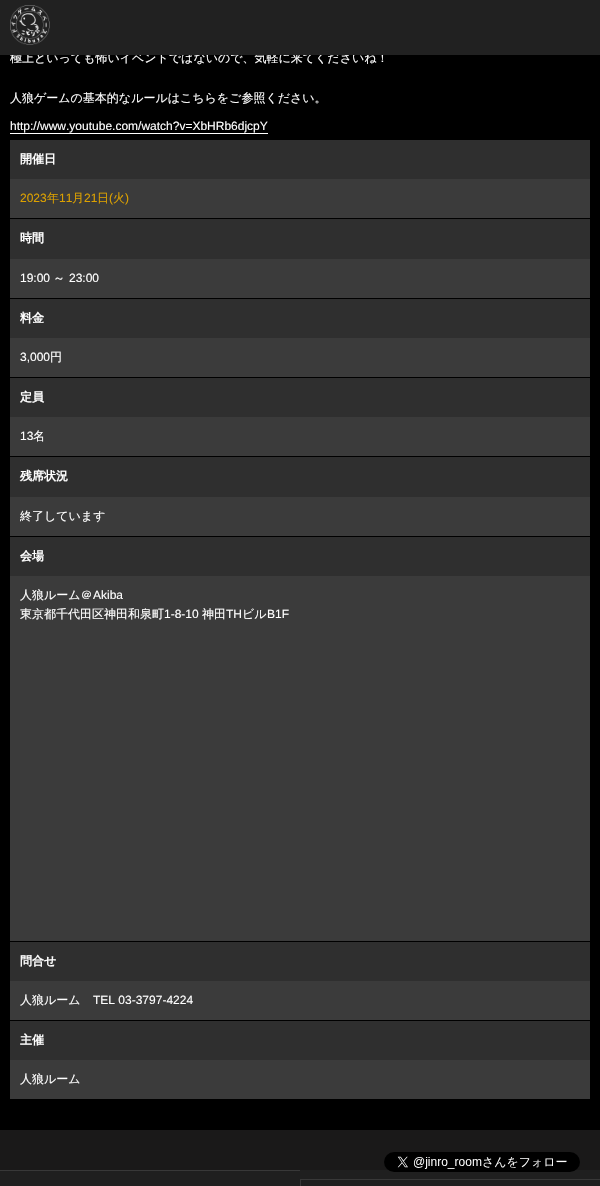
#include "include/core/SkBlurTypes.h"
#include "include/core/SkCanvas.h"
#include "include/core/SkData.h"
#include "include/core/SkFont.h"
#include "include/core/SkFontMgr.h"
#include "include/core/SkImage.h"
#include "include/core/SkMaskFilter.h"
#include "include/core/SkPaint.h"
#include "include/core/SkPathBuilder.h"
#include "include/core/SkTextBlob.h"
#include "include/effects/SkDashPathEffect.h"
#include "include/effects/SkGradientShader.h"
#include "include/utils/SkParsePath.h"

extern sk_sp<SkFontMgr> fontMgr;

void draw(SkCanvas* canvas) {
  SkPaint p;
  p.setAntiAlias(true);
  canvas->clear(SK_ColorBLACK);
  p.setColor(SK_ColorWHITE);
  canvas->drawRect(SkRect::MakeLTRB(10, 133, 268, 134), p);
  p.setColor(SkColorSetRGB(47, 47, 47));
  canvas->drawRect(SkRect::MakeLTRB(10, 140, 590, 179), p);
  p.setColor(SkColorSetRGB(59, 59, 59));
  canvas->drawRect(SkRect::MakeLTRB(10, 179, 590, 218), p);
  p.setColor(SkColorSetRGB(47, 47, 47));
  canvas->drawRect(SkRect::MakeLTRB(10, 219, 590, 259), p);
  p.setColor(SkColorSetRGB(59, 59, 59));
  canvas->drawRect(SkRect::MakeLTRB(10, 259, 590, 298), p);
  p.setColor(SkColorSetRGB(47, 47, 47));
  canvas->drawRect(SkRect::MakeLTRB(10, 299, 590, 338), p);
  p.setColor(SkColorSetRGB(59, 59, 59));
  canvas->drawRect(SkRect::MakeLTRB(10, 338, 590, 377), p);
  p.setColor(SkColorSetRGB(47, 47, 47));
  canvas->drawRect(SkRect::MakeLTRB(10, 378, 590, 417), p);
  p.setColor(SkColorSetRGB(59, 59, 59));
  canvas->drawRect(SkRect::MakeLTRB(10, 417, 590, 456), p);
  p.setColor(SkColorSetRGB(47, 47, 47));
  canvas->drawRect(SkRect::MakeLTRB(10, 457, 590, 497), p);
  p.setColor(SkColorSetRGB(59, 59, 59));
  canvas->drawRect(SkRect::MakeLTRB(10, 497, 590, 536), p);
  p.setColor(SkColorSetRGB(47, 47, 47));
  canvas->drawRect(SkRect::MakeLTRB(10, 537, 590, 576), p);
  p.setColor(SkColorSetRGB(59, 59, 59));
  canvas->drawRect(SkRect::MakeLTRB(10, 576, 590, 941), p);
  p.setColor(SkColorSetRGB(47, 47, 47));
  canvas->drawRect(SkRect::MakeLTRB(10, 942, 590, 981), p);
  p.setColor(SkColorSetRGB(59, 59, 59));
  canvas->drawRect(SkRect::MakeLTRB(10, 981, 590, 1020), p);
  p.setColor(SkColorSetRGB(47, 47, 47));
  canvas->drawRect(SkRect::MakeLTRB(10, 1021, 590, 1060), p);
  p.setColor(SkColorSetRGB(59, 59, 59));
  canvas->drawRect(SkRect::MakeLTRB(10, 1060, 590, 1099), p);
  p.setColor(SkColorSetRGB(26, 25, 25));
  canvas->drawRect(SkRect::MakeLTRB(0, 1130, 600, 1170), p);
  p.setColor(SkColorSetRGB(31, 31, 31));
  canvas->drawRect(SkRect::MakeLTRB(0, 1170, 600, 1186), p);
  canvas->drawImageRect(SkImages::DeferredFromEncodedData(SkData::MakeFromFileName("images/2.png")), SkRect::MakeLTRB(384, 1152, 580, 1172), SkSamplingOptions());
  p.setColor(SkColorSetRGB(56, 56, 56));
  canvas->drawRect(SkRect::MakeLTRB(0, 1170, 300, 1171), p);
  canvas->drawRect(SkRect::MakeLTRB(300, 1179, 600, 1180), p);
  canvas->drawRect(SkRect::MakeLTRB(300, 1179, 301, 1186), p);
  SkFont font1(fontMgr->matchFamilyStyle("WenQuanYi Zen Hei", SkFontStyle(500, SkFontStyle::kNormal_Width, SkFontStyle::kUpright_Slant)), 12);
  font1.setSubpixel(true);
  p.setColor(SK_ColorWHITE);
  canvas->drawString("極上といっても怖いイベントではないので、気軽に来てくださいね！", 10, 62, font1, p);
  p.setColor(SkColorSetRGB(33, 33, 33));
  canvas->drawRect(SkRect::MakeLTRB(0, 0, 600, 55), p);
  canvas->drawImageRect(SkImages::DeferredFromEncodedData(SkData::MakeFromFileName("images/1.png")), SkRect::MakeLTRB(10, 5, 50, 45), SkSamplingOptions());
  p.setColor(SK_ColorWHITE);
  canvas->drawString("人狼ゲームの基本的なルールはこちらをご参照ください。", 10, 102, font1, p);
  SkFont font2(fontMgr->matchFamilyStyle("Liberation Sans", SkFontStyle::Normal()), 12);
  font2.setSubpixel(true);
  canvas->drawString("http://www.youtube.com/watch?v=XbHRb6djcpY", 10, 130, font2, p);
  SkFont font3(fontMgr->matchFamilyStyle("WenQuanYi Zen Hei", SkFontStyle::Bold()), 12);
  font3.setSubpixel(true);
  canvas->drawString("開催日", 20, 163, font3, p);
  p.setColor(SkColorSetRGB(221, 161, 0));
  canvas->drawString("2023", 20, 202, font2, p);
  canvas->drawString("年", 47, 202, font1, p);
  canvas->drawString("11", 59, 202, font2, p);
  canvas->drawString("月", 72, 202, font1, p);
  canvas->drawString("21", 84, 202, font2, p);
  canvas->drawString("日", 97, 202, font1, p);
  canvas->drawString("(", 109, 202, font2, p);
  canvas->drawString("火", 113, 202, font1, p);
  canvas->drawString(")", 125, 202, font2, p);
  p.setColor(SK_ColorWHITE);
  canvas->drawString("時間", 20, 242, font3, p);
  canvas->drawString("19:00", 20, 282, font2, p);
  canvas->drawString("～", 53, 282, font1, p);
  canvas->drawString("23:00", 69, 282, font2, p);
  canvas->drawString("料金", 20, 322, font3, p);
  canvas->drawString("3,000", 20, 361, font2, p);
  canvas->drawString("円", 50, 361, font1, p);
  canvas->drawString("定員", 20, 401, font3, p);
  canvas->drawString("13", 20, 440, font2, p);
  canvas->drawString("名", 33, 440, font1, p);
  canvas->drawString("残席状況", 20, 480, font3, p);
  canvas->drawString("終了しています", 20, 520, font1, p);
  canvas->drawString("会場", 20, 560, font3, p);
  canvas->drawString("人狼ルーム＠", 20, 599, font1, p);
  canvas->drawString("Akiba", 93, 599, font2, p);
  canvas->drawString("東京都千代田区神田和泉町", 20, 618, font1, p);
  canvas->drawString("1-8-10", 164, 618, font2, p);
  canvas->drawString("神田", 202, 618, font1, p);
  canvas->drawString("TH", 226, 618, font2, p);
  canvas->drawString("ビル", 242, 618, font1, p);
  canvas->drawString("B1F", 267, 618, font2, p);
  canvas->drawString("問合せ", 20, 965, font3, p);
  canvas->drawString("人狼ルーム", 20, 1004, font1, p);
  canvas->drawString("TEL 03-3797-4224", 93, 1004, font2, p);
  canvas->drawString("主催", 20, 1044, font3, p);
  canvas->drawString("人狼ルーム", 20, 1083, font1, p);
}
